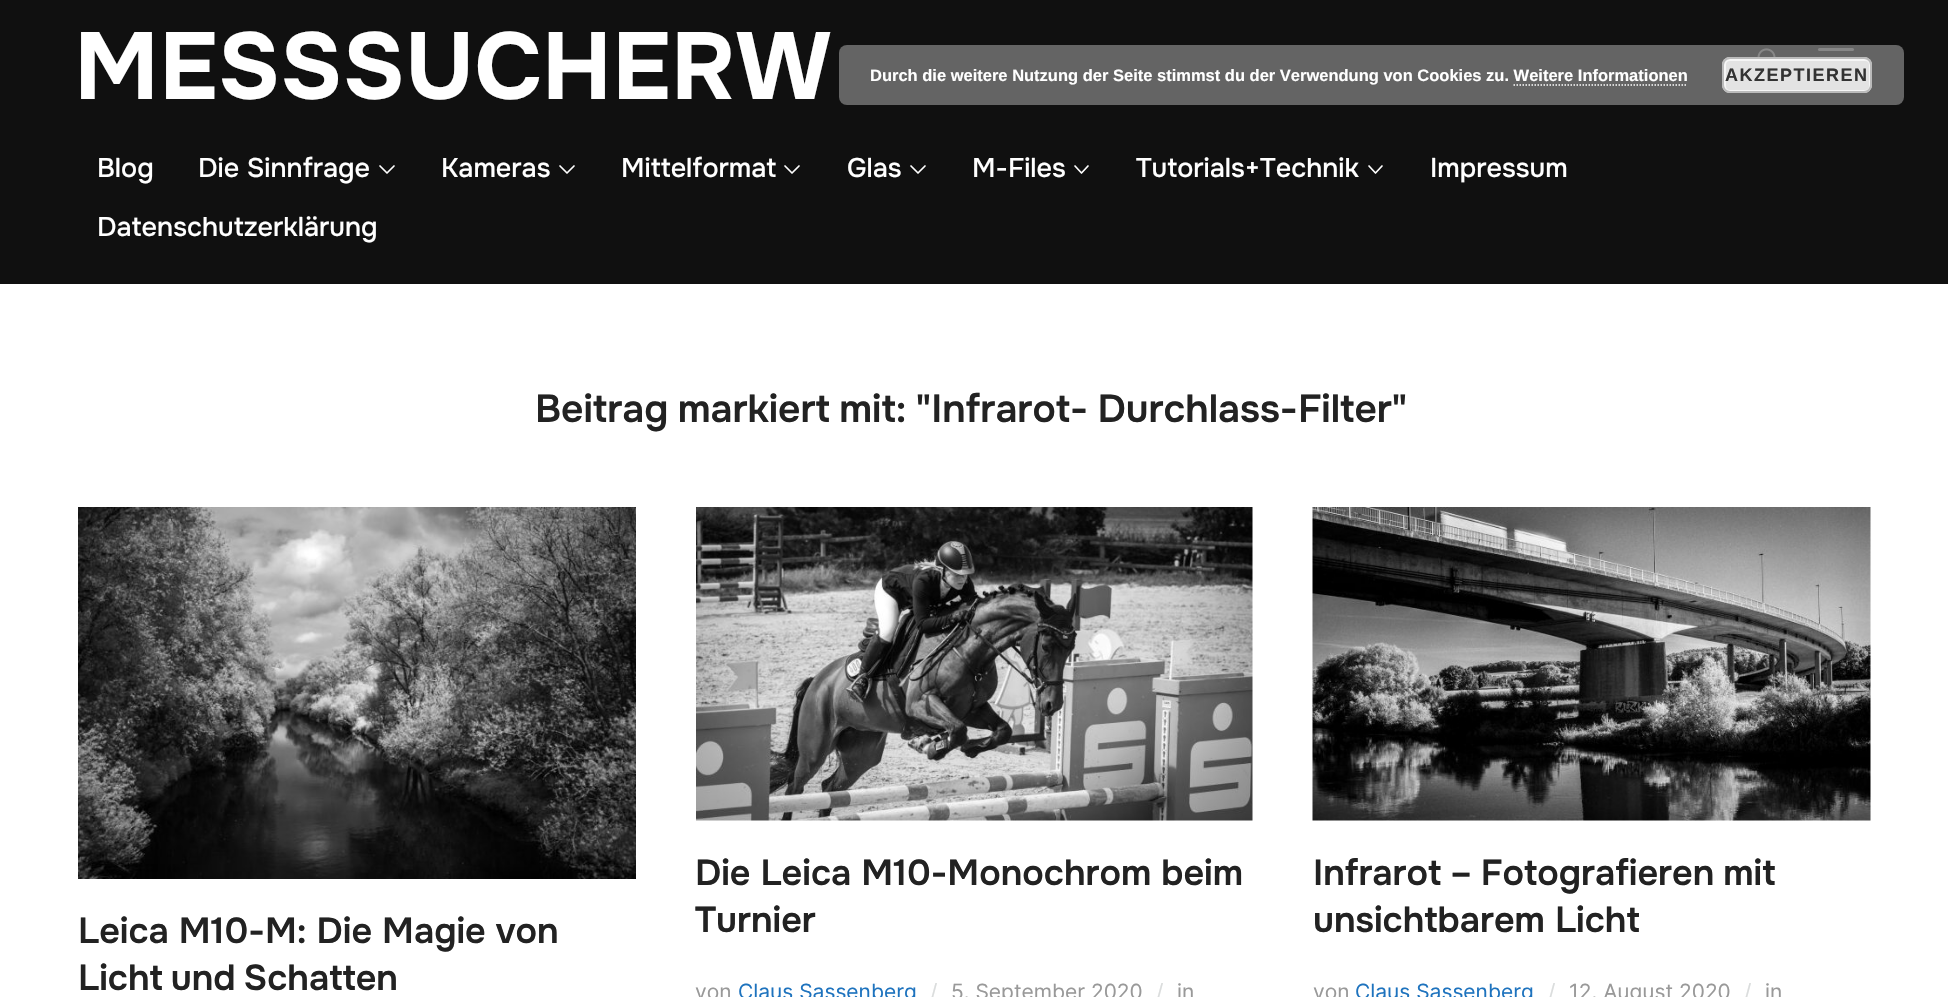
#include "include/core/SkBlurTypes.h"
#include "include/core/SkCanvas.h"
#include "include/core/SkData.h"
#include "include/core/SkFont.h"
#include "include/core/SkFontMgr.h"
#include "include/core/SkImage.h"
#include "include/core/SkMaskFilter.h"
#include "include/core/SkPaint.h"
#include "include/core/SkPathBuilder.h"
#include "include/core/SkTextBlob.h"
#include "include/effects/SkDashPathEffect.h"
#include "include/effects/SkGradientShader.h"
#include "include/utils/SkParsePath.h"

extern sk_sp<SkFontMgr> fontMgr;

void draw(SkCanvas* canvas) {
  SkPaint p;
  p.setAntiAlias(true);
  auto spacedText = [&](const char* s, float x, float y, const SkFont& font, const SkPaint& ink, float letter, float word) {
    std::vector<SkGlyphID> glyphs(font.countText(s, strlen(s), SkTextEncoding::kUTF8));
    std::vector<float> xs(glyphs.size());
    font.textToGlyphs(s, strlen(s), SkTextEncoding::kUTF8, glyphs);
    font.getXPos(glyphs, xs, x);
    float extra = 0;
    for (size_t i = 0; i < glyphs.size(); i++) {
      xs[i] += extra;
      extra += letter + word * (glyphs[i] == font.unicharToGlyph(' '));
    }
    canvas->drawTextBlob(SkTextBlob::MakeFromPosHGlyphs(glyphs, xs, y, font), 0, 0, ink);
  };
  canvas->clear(SK_ColorWHITE);
  p.setColor(SkColorSetRGB(16, 16, 16));
  canvas->drawRect(SkRect::MakeLTRB(0, 0, 1948, 284), p);
  canvas->drawImageRect(SkImages::DeferredFromEncodedData(SkData::MakeFromFileName("images/1.png")), SkRect::MakeLTRB(1757, 48, 1776, 57), SkSamplingOptions());
  p.setColor(SK_ColorWHITE);
  canvas->drawRoundRect(SkRect::MakeLTRB(1818, 48, 1854, 51), 1.5f, 1.5f, p);
  p.setStyle(SkPaint::kStroke_Style);
  p.setStrokeWidth(1.7f);
  p.setStrokeCap(SkPaint::kRound_Cap);
  p.setStrokeJoin(SkPaint::kRound_Join);
  canvas->drawPath(SkPathBuilder().moveTo(380, 166).lineTo(387, 173).lineTo(394, 166).detach(), p);
  canvas->drawPath(SkPathBuilder().moveTo(560, 166).lineTo(567, 173).lineTo(574, 166).detach(), p);
  canvas->drawPath(SkPathBuilder().moveTo(785, 166).lineTo(792, 173).lineTo(799, 166).detach(), p);
  canvas->drawPath(SkPathBuilder().moveTo(911, 166).lineTo(918, 173).lineTo(925, 166).detach(), p);
  canvas->drawPath(SkPathBuilder().moveTo(1075, 166).lineTo(1081.5f, 173).lineTo(1088, 166).detach(), p);
  canvas->drawPath(SkPathBuilder().moveTo(1369, 166).lineTo(1375.5f, 173).lineTo(1382, 166).detach(), p);
  canvas->drawImageRect(SkImages::DeferredFromEncodedData(SkData::MakeFromFileName("images/2.png")), SkRect::MakeLTRB(78, 507, 636, 879), SkSamplingOptions());
  canvas->drawImageRect(SkImages::DeferredFromEncodedData(SkData::MakeFromFileName("images/3.png")), SkRect::MakeLTRB(696, 507, 1253, 821), SkSamplingOptions());
  canvas->drawImageRect(SkImages::DeferredFromEncodedData(SkData::MakeFromFileName("images/4.png")), SkRect::MakeLTRB(1312, 507, 1871, 821), SkSamplingOptions());
  p.setStyle(SkPaint::kFill_Style);
  p.setColor(SkColorSetARGB(217, 114, 114, 114));
  canvas->drawRoundRect(SkRect::MakeLTRB(839, 45, 1904, 105), 8, 8, p);
  p.setColor(SkColorSetRGB(227, 227, 227));
  canvas->drawRoundRect(SkRect::MakeLTRB(1722, 57, 1872, 93), 8, 8, p);
  p.setStyle(SkPaint::kStroke_Style);
  p.setStrokeWidth(2);
  p.setStrokeCap(SkPaint::kButt_Cap);
  p.setStrokeJoin(SkPaint::kMiter_Join);
  p.setColor(SkColorSetRGB(246, 246, 246));
  canvas->drawRoundRect(SkRect::MakeLTRB(1725, 60, 1870, 91), 5, 5, p);
  p.setColor(SkColorSetRGB(187, 187, 187));
  canvas->drawRoundRect(SkRect::MakeLTRB(1723, 58, 1871, 92), 7, 7, p);
  p.setStrokeWidth(1.5f);
  p.setColor(SK_ColorWHITE);
  p.setPathEffect(SkDashPathEffect::Make({{1.5f, 1.5f}}, 0));
  canvas->drawPath(SkPathBuilder().moveTo(1513.5f, 85).lineTo(1687.5f, 85).detach(), p);
  p.setPathEffect(nullptr);
  SkFont font1(fontMgr->matchFamilyStyle("Onest", SkFontStyle::Bold()), 94.5f);
  font1.setSubpixel(true);
  p.setStyle(SkPaint::kFill_Style);
  canvas->drawString("MESSSUCHERW", 74, 99, font1, p);
  SkFont font2(fontMgr->matchFamilyStyle("Onest", SkFontStyle(500, SkFontStyle::kNormal_Width, SkFontStyle::kUpright_Slant)), 27);
  font2.setSubpixel(true);
  canvas->drawString("Blog", 97, 177, font2, p);
  canvas->drawString("Die Sinnfrage", 198, 177, font2, p);
  canvas->drawString("Kameras", 441, 177, font2, p);
  canvas->drawString("Mittelformat", 621, 177, font2, p);
  canvas->drawString("Glas", 847, 177, font2, p);
  canvas->drawString("M-Files", 972, 177, font2, p);
  canvas->drawString("Tutorials+Technik", 1136, 177, font2, p);
  canvas->drawString("Impressum", 1430, 177, font2, p);
  canvas->drawString("Datenschutzerklärung", 97, 236, font2, p);
  SkFont font3(fontMgr->matchFamilyStyle("Onest", SkFontStyle(600, SkFontStyle::kNormal_Width, SkFontStyle::kUpright_Slant)), 39);
  font3.setSubpixel(true);
  p.setColor(SkColorSetRGB(34, 34, 34));
  spacedText("Beitrag markiert mit: \"Infrarot- Durchlass-Filter\"", 535, 422, font3, p, 0, -1.5f);
  SkFont font4(fontMgr->matchFamilyStyle("Onest", SkFontStyle(600, SkFontStyle::kNormal_Width, SkFontStyle::kUpright_Slant)), 36);
  font4.setSubpixel(true);
  canvas->drawString("Leica M10-M: Die Magie von", 78, 943, font4, p);
  spacedText("Licht und Schatten", 78, 990, font4, p, 0, -2);
  canvas->drawString("Die Leica M10-Monochrom beim", 695, 885, font4, p);
  canvas->drawString("Turnier", 695, 932, font4, p);
  SkFont font5(fontMgr->matchFamilyStyle("Inter", SkFontStyle::Normal()), 21);
  font5.setSubpixel(true);
  p.setColor(SkColorSetRGB(153, 153, 153));
  canvas->drawString("von", 695, 999, font5, p);
  p.setColor(SkColorSetRGB(30, 115, 190));
  canvas->drawString("Claus Sassenberg", 738, 999, font5, p);
  p.setColor(SkColorSetRGB(219, 221, 221));
  canvas->drawString("/", 930, 999, font5, p);
  p.setColor(SkColorSetRGB(153, 153, 153));
  canvas->drawString("5. September 2020", 951, 999, font5, p);
  p.setColor(SkColorSetRGB(219, 221, 221));
  canvas->drawString("/", 1156, 999, font5, p);
  p.setColor(SkColorSetRGB(153, 153, 153));
  canvas->drawString("in", 1177, 999, font5, p);
  p.setColor(SkColorSetRGB(34, 34, 34));
  spacedText("Infrarot – Fotografieren mit", 1313, 885, font4, p, 0, -1);
  canvas->drawString("unsichtbarem Licht", 1313, 932, font4, p);
  p.setColor(SkColorSetRGB(153, 153, 153));
  canvas->drawString("von", 1313, 999, font5, p);
  p.setColor(SkColorSetRGB(30, 115, 190));
  canvas->drawString("Claus Sassenberg", 1355, 999, font5, p);
  p.setColor(SkColorSetRGB(219, 221, 221));
  canvas->drawString("/", 1548, 999, font5, p);
  p.setColor(SkColorSetRGB(153, 153, 153));
  canvas->drawString("12. August 2020", 1569, 999, font5, p);
  p.setColor(SkColorSetRGB(219, 221, 221));
  canvas->drawString("/", 1744, 999, font5, p);
  p.setColor(SkColorSetRGB(153, 153, 153));
  canvas->drawString("in", 1765, 999, font5, p);
  SkFont font6(fontMgr->matchFamilyStyle("Liberation Sans", SkFontStyle::Bold()), 16.5f);
  font6.setSubpixel(true);
  p.setColor(SK_ColorWHITE);
  canvas->drawString("Durch die weitere Nutzung der Seite stimmst du der Verwendung von Cookies zu. Weitere Informationen", 870, 81, font6, p);
  SkFont font7(fontMgr->matchFamilyStyle("Liberation Sans", SkFontStyle::Bold()), 18);
  font7.setSubpixel(true);
  p.setColor(SkColorSetRGB(51, 51, 51));
  spacedText("AKZEPTIEREN", 1725, 81, font7, p, 1.5f, 0);
}
